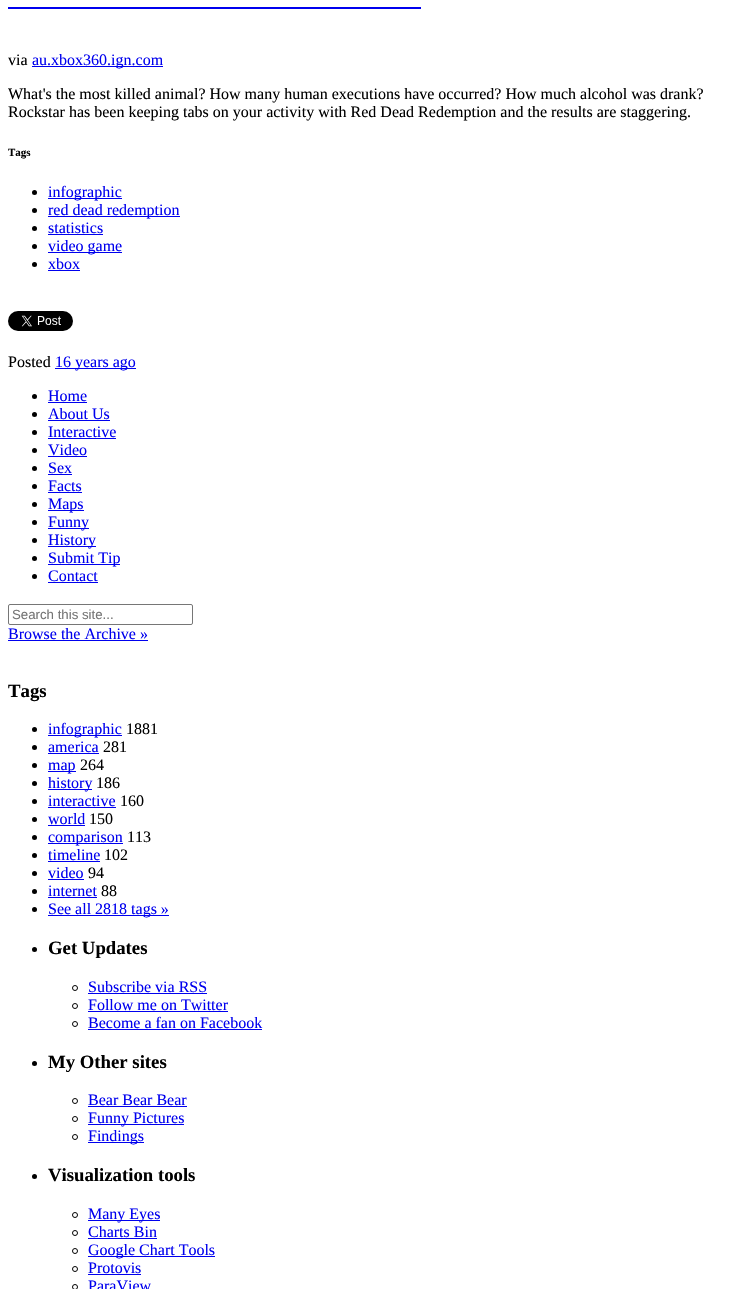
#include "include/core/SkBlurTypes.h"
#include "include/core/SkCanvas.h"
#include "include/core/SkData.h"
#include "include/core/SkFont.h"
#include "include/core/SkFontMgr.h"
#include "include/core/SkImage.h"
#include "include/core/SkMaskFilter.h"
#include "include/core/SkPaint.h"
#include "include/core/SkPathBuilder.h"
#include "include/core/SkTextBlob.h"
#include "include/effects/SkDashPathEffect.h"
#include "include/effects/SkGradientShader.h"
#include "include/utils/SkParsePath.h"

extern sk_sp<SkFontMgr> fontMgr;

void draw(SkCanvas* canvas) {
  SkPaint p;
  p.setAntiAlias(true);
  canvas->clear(SK_ColorWHITE);
  p.setColor(SkColorSetRGB(0, 0, 238));
  canvas->drawRect(SkRect::MakeLTRB(8, 7, 421, 9), p);
  canvas->drawRect(SkRect::MakeLTRB(32, 66, 163, 67), p);
  p.setColor(SK_ColorBLACK);
  canvas->drawCircle(34.5f, 192.5f, 2.5f, p);
  p.setColor(SkColorSetRGB(0, 0, 238));
  canvas->drawRect(SkRect::MakeLTRB(48, 198, 122, 199), p);
  p.setColor(SK_ColorBLACK);
  canvas->drawCircle(34.5f, 210.5f, 2.5f, p);
  p.setColor(SkColorSetRGB(0, 0, 238));
  canvas->drawRect(SkRect::MakeLTRB(48, 216, 180, 217), p);
  p.setColor(SK_ColorBLACK);
  canvas->drawCircle(34.5f, 228.5f, 2.5f, p);
  p.setColor(SkColorSetRGB(0, 0, 238));
  canvas->drawRect(SkRect::MakeLTRB(48, 234, 103, 235), p);
  p.setColor(SK_ColorBLACK);
  canvas->drawCircle(34.5f, 246.5f, 2.5f, p);
  p.setColor(SkColorSetRGB(0, 0, 238));
  canvas->drawRect(SkRect::MakeLTRB(48, 252, 122, 253), p);
  p.setColor(SK_ColorBLACK);
  canvas->drawCircle(34.5f, 264.5f, 2.5f, p);
  p.setColor(SkColorSetRGB(0, 0, 238));
  canvas->drawRect(SkRect::MakeLTRB(48, 270, 80, 271), p);
  canvas->drawImageRect(SkImages::DeferredFromEncodedData(SkData::MakeFromFileName("images/1.png")), SkRect::MakeLTRB(8, 311, 73, 331), SkSamplingOptions());
  canvas->drawRect(SkRect::MakeLTRB(55, 368, 136, 369), p);
  p.setColor(SK_ColorBLACK);
  canvas->drawCircle(34.5f, 396.5f, 2.5f, p);
  p.setColor(SkColorSetRGB(0, 0, 238));
  canvas->drawRect(SkRect::MakeLTRB(48, 402, 87, 403), p);
  p.setColor(SK_ColorBLACK);
  canvas->drawCircle(34.5f, 414.5f, 2.5f, p);
  p.setColor(SkColorSetRGB(0, 0, 238));
  canvas->drawRect(SkRect::MakeLTRB(48, 420, 110, 421), p);
  p.setColor(SK_ColorBLACK);
  canvas->drawCircle(34.5f, 432.5f, 2.5f, p);
  p.setColor(SkColorSetRGB(0, 0, 238));
  canvas->drawRect(SkRect::MakeLTRB(48, 438, 116, 439), p);
  p.setColor(SK_ColorBLACK);
  canvas->drawCircle(34.5f, 450.5f, 2.5f, p);
  p.setColor(SkColorSetRGB(0, 0, 238));
  canvas->drawRect(SkRect::MakeLTRB(48, 456, 87, 457), p);
  p.setColor(SK_ColorBLACK);
  canvas->drawCircle(34.5f, 468.5f, 2.5f, p);
  p.setColor(SkColorSetRGB(0, 0, 238));
  canvas->drawRect(SkRect::MakeLTRB(48, 474, 72, 475), p);
  p.setColor(SK_ColorBLACK);
  canvas->drawCircle(34.5f, 486.5f, 2.5f, p);
  p.setColor(SkColorSetRGB(0, 0, 238));
  canvas->drawRect(SkRect::MakeLTRB(48, 492, 82, 493), p);
  p.setColor(SK_ColorBLACK);
  canvas->drawCircle(34.5f, 504.5f, 2.5f, p);
  p.setColor(SkColorSetRGB(0, 0, 238));
  canvas->drawRect(SkRect::MakeLTRB(48, 510, 84, 511), p);
  p.setColor(SK_ColorBLACK);
  canvas->drawCircle(34.5f, 522.5f, 2.5f, p);
  p.setColor(SkColorSetRGB(0, 0, 238));
  canvas->drawRect(SkRect::MakeLTRB(48, 528, 89, 529), p);
  p.setColor(SK_ColorBLACK);
  canvas->drawCircle(34.5f, 540.5f, 2.5f, p);
  p.setColor(SkColorSetRGB(0, 0, 238));
  canvas->drawRect(SkRect::MakeLTRB(48, 546, 96, 547), p);
  p.setColor(SK_ColorBLACK);
  canvas->drawCircle(34.5f, 558.5f, 2.5f, p);
  p.setColor(SkColorSetRGB(0, 0, 238));
  canvas->drawRect(SkRect::MakeLTRB(48, 564, 120, 565), p);
  p.setColor(SK_ColorBLACK);
  canvas->drawCircle(34.5f, 576.5f, 2.5f, p);
  p.setColor(SkColorSetRGB(0, 0, 238));
  canvas->drawRect(SkRect::MakeLTRB(48, 582, 98, 583), p);
  p.setStyle(SkPaint::kStroke_Style);
  p.setStrokeWidth(1);
  p.setColor(SkColorSetRGB(118, 118, 118));
  canvas->drawRoundRect(SkRect::MakeLTRB(8.5f, 604.5f, 192.5f, 624.5f), 1.5f, 1.5f, p);
  p.setStyle(SkPaint::kFill_Style);
  p.setColor(SkColorSetRGB(0, 0, 238));
  canvas->drawRect(SkRect::MakeLTRB(8, 640, 148, 641), p);
  p.setColor(SK_ColorBLACK);
  canvas->drawCircle(34.5f, 729.5f, 2.5f, p);
  p.setColor(SkColorSetRGB(0, 0, 238));
  canvas->drawRect(SkRect::MakeLTRB(48, 735, 122, 736), p);
  p.setColor(SK_ColorBLACK);
  canvas->drawCircle(34.5f, 747.5f, 2.5f, p);
  p.setColor(SkColorSetRGB(0, 0, 238));
  canvas->drawRect(SkRect::MakeLTRB(48, 753, 99, 754), p);
  p.setColor(SK_ColorBLACK);
  canvas->drawCircle(34.5f, 765.5f, 2.5f, p);
  p.setColor(SkColorSetRGB(0, 0, 238));
  canvas->drawRect(SkRect::MakeLTRB(48, 771, 76, 772), p);
  p.setColor(SK_ColorBLACK);
  canvas->drawCircle(34.5f, 783.5f, 2.5f, p);
  p.setColor(SkColorSetRGB(0, 0, 238));
  canvas->drawRect(SkRect::MakeLTRB(48, 789, 92, 790), p);
  p.setColor(SK_ColorBLACK);
  canvas->drawCircle(34.5f, 801.5f, 2.5f, p);
  p.setColor(SkColorSetRGB(0, 0, 238));
  canvas->drawRect(SkRect::MakeLTRB(48, 807, 116, 808), p);
  p.setColor(SK_ColorBLACK);
  canvas->drawCircle(34.5f, 819.5f, 2.5f, p);
  p.setColor(SkColorSetRGB(0, 0, 238));
  canvas->drawRect(SkRect::MakeLTRB(48, 825, 85, 826), p);
  p.setColor(SK_ColorBLACK);
  canvas->drawCircle(34.5f, 837.5f, 2.5f, p);
  p.setColor(SkColorSetRGB(0, 0, 238));
  canvas->drawRect(SkRect::MakeLTRB(48, 843, 123, 844), p);
  p.setColor(SK_ColorBLACK);
  canvas->drawCircle(34.5f, 855.5f, 2.5f, p);
  p.setColor(SkColorSetRGB(0, 0, 238));
  canvas->drawRect(SkRect::MakeLTRB(48, 861, 100, 862), p);
  p.setColor(SK_ColorBLACK);
  canvas->drawCircle(34.5f, 873.5f, 2.5f, p);
  p.setColor(SkColorSetRGB(0, 0, 238));
  canvas->drawRect(SkRect::MakeLTRB(48, 879, 84, 880), p);
  p.setColor(SK_ColorBLACK);
  canvas->drawCircle(34.5f, 891.5f, 2.5f, p);
  p.setColor(SkColorSetRGB(0, 0, 238));
  canvas->drawRect(SkRect::MakeLTRB(48, 897, 97, 898), p);
  p.setColor(SK_ColorBLACK);
  canvas->drawCircle(34.5f, 909.5f, 2.5f, p);
  p.setColor(SkColorSetRGB(0, 0, 238));
  canvas->drawRect(SkRect::MakeLTRB(48, 915, 169, 916), p);
  p.setColor(SK_ColorBLACK);
  canvas->drawCircle(34.5f, 949.5f, 2.5f, p);
  p.setStyle(SkPaint::kStroke_Style);
  canvas->drawCircle(75, 988, 2.5f, p);
  p.setStyle(SkPaint::kFill_Style);
  p.setColor(SkColorSetRGB(0, 0, 238));
  canvas->drawRect(SkRect::MakeLTRB(88, 993, 207, 994), p);
  p.setStyle(SkPaint::kStroke_Style);
  p.setColor(SK_ColorBLACK);
  canvas->drawCircle(75, 1006, 2.5f, p);
  p.setStyle(SkPaint::kFill_Style);
  p.setColor(SkColorSetRGB(0, 0, 238));
  canvas->drawRect(SkRect::MakeLTRB(88, 1011, 228, 1012), p);
  p.setStyle(SkPaint::kStroke_Style);
  p.setColor(SK_ColorBLACK);
  canvas->drawCircle(75, 1024, 2.5f, p);
  p.setStyle(SkPaint::kFill_Style);
  p.setColor(SkColorSetRGB(0, 0, 238));
  canvas->drawRect(SkRect::MakeLTRB(88, 1029, 262, 1030), p);
  p.setColor(SK_ColorBLACK);
  canvas->drawCircle(34.5f, 1063.5f, 2.5f, p);
  p.setStyle(SkPaint::kStroke_Style);
  canvas->drawCircle(75, 1101, 2.5f, p);
  p.setStyle(SkPaint::kFill_Style);
  p.setColor(SkColorSetRGB(0, 0, 238));
  canvas->drawRect(SkRect::MakeLTRB(88, 1106, 187, 1107), p);
  p.setStyle(SkPaint::kStroke_Style);
  p.setColor(SK_ColorBLACK);
  canvas->drawCircle(75, 1119, 2.5f, p);
  p.setStyle(SkPaint::kFill_Style);
  p.setColor(SkColorSetRGB(0, 0, 238));
  canvas->drawRect(SkRect::MakeLTRB(88, 1124, 184, 1125), p);
  p.setStyle(SkPaint::kStroke_Style);
  p.setColor(SK_ColorBLACK);
  canvas->drawCircle(75, 1137, 2.5f, p);
  p.setStyle(SkPaint::kFill_Style);
  p.setColor(SkColorSetRGB(0, 0, 238));
  canvas->drawRect(SkRect::MakeLTRB(88, 1142, 144, 1143), p);
  p.setColor(SK_ColorBLACK);
  canvas->drawCircle(34.5f, 1176.5f, 2.5f, p);
  p.setStyle(SkPaint::kStroke_Style);
  canvas->drawCircle(75, 1215, 2.5f, p);
  p.setStyle(SkPaint::kFill_Style);
  p.setColor(SkColorSetRGB(0, 0, 238));
  canvas->drawRect(SkRect::MakeLTRB(88, 1220, 160, 1221), p);
  p.setStyle(SkPaint::kStroke_Style);
  p.setColor(SK_ColorBLACK);
  canvas->drawCircle(75, 1233, 2.5f, p);
  p.setStyle(SkPaint::kFill_Style);
  p.setColor(SkColorSetRGB(0, 0, 238));
  canvas->drawRect(SkRect::MakeLTRB(88, 1238, 157, 1239), p);
  p.setStyle(SkPaint::kStroke_Style);
  p.setColor(SK_ColorBLACK);
  canvas->drawCircle(75, 1251, 2.5f, p);
  p.setStyle(SkPaint::kFill_Style);
  p.setColor(SkColorSetRGB(0, 0, 238));
  canvas->drawRect(SkRect::MakeLTRB(88, 1256, 215, 1257), p);
  p.setStyle(SkPaint::kStroke_Style);
  p.setColor(SK_ColorBLACK);
  canvas->drawCircle(75, 1269, 2.5f, p);
  p.setStyle(SkPaint::kFill_Style);
  p.setColor(SkColorSetRGB(0, 0, 238));
  canvas->drawRect(SkRect::MakeLTRB(88, 1274, 141, 1275), p);
  p.setStyle(SkPaint::kStroke_Style);
  p.setColor(SK_ColorBLACK);
  canvas->drawCircle(75, 1287, 2.5f, p);
  SkFont font1(fontMgr->matchFamilyStyle("Liberation Serif", SkFontStyle::Normal()), 16);
  font1.setSubpixel(true);
  p.setStyle(SkPaint::kFill_Style);
  canvas->drawString("via", 8, 65, font1, p);
  p.setColor(SkColorSetRGB(0, 0, 238));
  canvas->drawString("au.xbox360.ign.com", 32, 65, font1, p);
  p.setColor(SK_ColorBLACK);
  canvas->drawString("What's the most killed animal? How many human executions have occurred? How much alcohol was drank?", 8, 99, font1, p);
  canvas->drawString("Rockstar has been keeping tabs on your activity with Red Dead Redemption and the results are staggering.", 8, 117, font1, p);
  SkFont font2(fontMgr->matchFamilyStyle("Liberation Serif", SkFontStyle::Bold()), 11);
  font2.setSubpixel(true);
  canvas->drawString("Tags", 8, 156, font2, p);
  p.setColor(SkColorSetRGB(0, 0, 238));
  canvas->drawString("infographic", 48, 197, font1, p);
  canvas->drawString("red dead redemption", 48, 215, font1, p);
  canvas->drawString("statistics", 48, 233, font1, p);
  canvas->drawString("video game", 48, 251, font1, p);
  canvas->drawString("xbox", 48, 269, font1, p);
  p.setColor(SK_ColorBLACK);
  canvas->drawString("Posted", 8, 367, font1, p);
  p.setColor(SkColorSetRGB(0, 0, 238));
  canvas->drawString("16 years ago", 55, 367, font1, p);
  canvas->drawString("Home", 48, 401, font1, p);
  canvas->drawString("About Us", 48, 419, font1, p);
  canvas->drawString("Interactive", 48, 437, font1, p);
  canvas->drawString("Video", 48, 455, font1, p);
  canvas->drawString("Sex", 48, 473, font1, p);
  canvas->drawString("Facts", 48, 491, font1, p);
  canvas->drawString("Maps", 48, 509, font1, p);
  canvas->drawString("Funny", 48, 527, font1, p);
  canvas->drawString("History", 48, 545, font1, p);
  canvas->drawString("Submit Tip", 48, 563, font1, p);
  canvas->drawString("Contact", 48, 581, font1, p);
  SkFont font3(fontMgr->matchFamilyStyle("Liberation Sans", SkFontStyle::Normal()), 13.25f);
  font3.setSubpixel(true);
  p.setColor(SkColorSetRGB(117, 117, 117));
  canvas->drawString("Search this site...", 12, 619, font3, p);
  p.setColor(SkColorSetRGB(0, 0, 238));
  canvas->drawString("Browse the Archive »", 8, 639, font1, p);
  SkFont font4(fontMgr->matchFamilyStyle("Liberation Serif", SkFontStyle::Bold()), 18.75f);
  font4.setSubpixel(true);
  p.setColor(SK_ColorBLACK);
  canvas->drawString("Tags", 8, 697, font4, p);
  p.setColor(SkColorSetRGB(0, 0, 238));
  canvas->drawString("infographic", 48, 734, font1, p);
  p.setColor(SK_ColorBLACK);
  canvas->drawString("1881", 126, 734, font1, p);
  p.setColor(SkColorSetRGB(0, 0, 238));
  canvas->drawString("america", 48, 752, font1, p);
  p.setColor(SK_ColorBLACK);
  canvas->drawString("281", 103, 752, font1, p);
  p.setColor(SkColorSetRGB(0, 0, 238));
  canvas->drawString("map", 48, 770, font1, p);
  p.setColor(SK_ColorBLACK);
  canvas->drawString("264", 80, 770, font1, p);
  p.setColor(SkColorSetRGB(0, 0, 238));
  canvas->drawString("history", 48, 788, font1, p);
  p.setColor(SK_ColorBLACK);
  canvas->drawString("186", 96, 788, font1, p);
  p.setColor(SkColorSetRGB(0, 0, 238));
  canvas->drawString("interactive", 48, 806, font1, p);
  p.setColor(SK_ColorBLACK);
  canvas->drawString("160", 120, 806, font1, p);
  p.setColor(SkColorSetRGB(0, 0, 238));
  canvas->drawString("world", 48, 824, font1, p);
  p.setColor(SK_ColorBLACK);
  canvas->drawString("150", 89, 824, font1, p);
  p.setColor(SkColorSetRGB(0, 0, 238));
  canvas->drawString("comparison", 48, 842, font1, p);
  p.setColor(SK_ColorBLACK);
  canvas->drawString("113", 127, 842, font1, p);
  p.setColor(SkColorSetRGB(0, 0, 238));
  canvas->drawString("timeline", 48, 860, font1, p);
  p.setColor(SK_ColorBLACK);
  canvas->drawString("102", 104, 860, font1, p);
  p.setColor(SkColorSetRGB(0, 0, 238));
  canvas->drawString("video", 48, 878, font1, p);
  p.setColor(SK_ColorBLACK);
  canvas->drawString("94", 88, 878, font1, p);
  p.setColor(SkColorSetRGB(0, 0, 238));
  canvas->drawString("internet", 48, 896, font1, p);
  p.setColor(SK_ColorBLACK);
  canvas->drawString("88", 101, 896, font1, p);
  p.setColor(SkColorSetRGB(0, 0, 238));
  canvas->drawString("See all 2818 tags »", 48, 914, font1, p);
  p.setColor(SK_ColorBLACK);
  canvas->drawString("Get Updates", 48, 954, font4, p);
  p.setColor(SkColorSetRGB(0, 0, 238));
  canvas->drawString("Subscribe via RSS", 88, 992, font1, p);
  canvas->drawString("Follow me on Twitter", 88, 1010, font1, p);
  canvas->drawString("Become a fan on Facebook", 88, 1028, font1, p);
  p.setColor(SK_ColorBLACK);
  canvas->drawString("My Other sites", 48, 1068, font4, p);
  p.setColor(SkColorSetRGB(0, 0, 238));
  canvas->drawString("Bear Bear Bear", 88, 1105, font1, p);
  canvas->drawString("Funny Pictures", 88, 1123, font1, p);
  canvas->drawString("Findings", 88, 1141, font1, p);
  p.setColor(SK_ColorBLACK);
  canvas->drawString("Visualization tools", 48, 1181, font4, p);
  p.setColor(SkColorSetRGB(0, 0, 238));
  canvas->drawString("Many Eyes", 88, 1219, font1, p);
  canvas->drawString("Charts Bin", 88, 1237, font1, p);
  canvas->drawString("Google Chart Tools", 88, 1255, font1, p);
  canvas->drawString("Protovis", 88, 1273, font1, p);
  canvas->drawString("ParaView", 88, 1291, font1, p);
}
